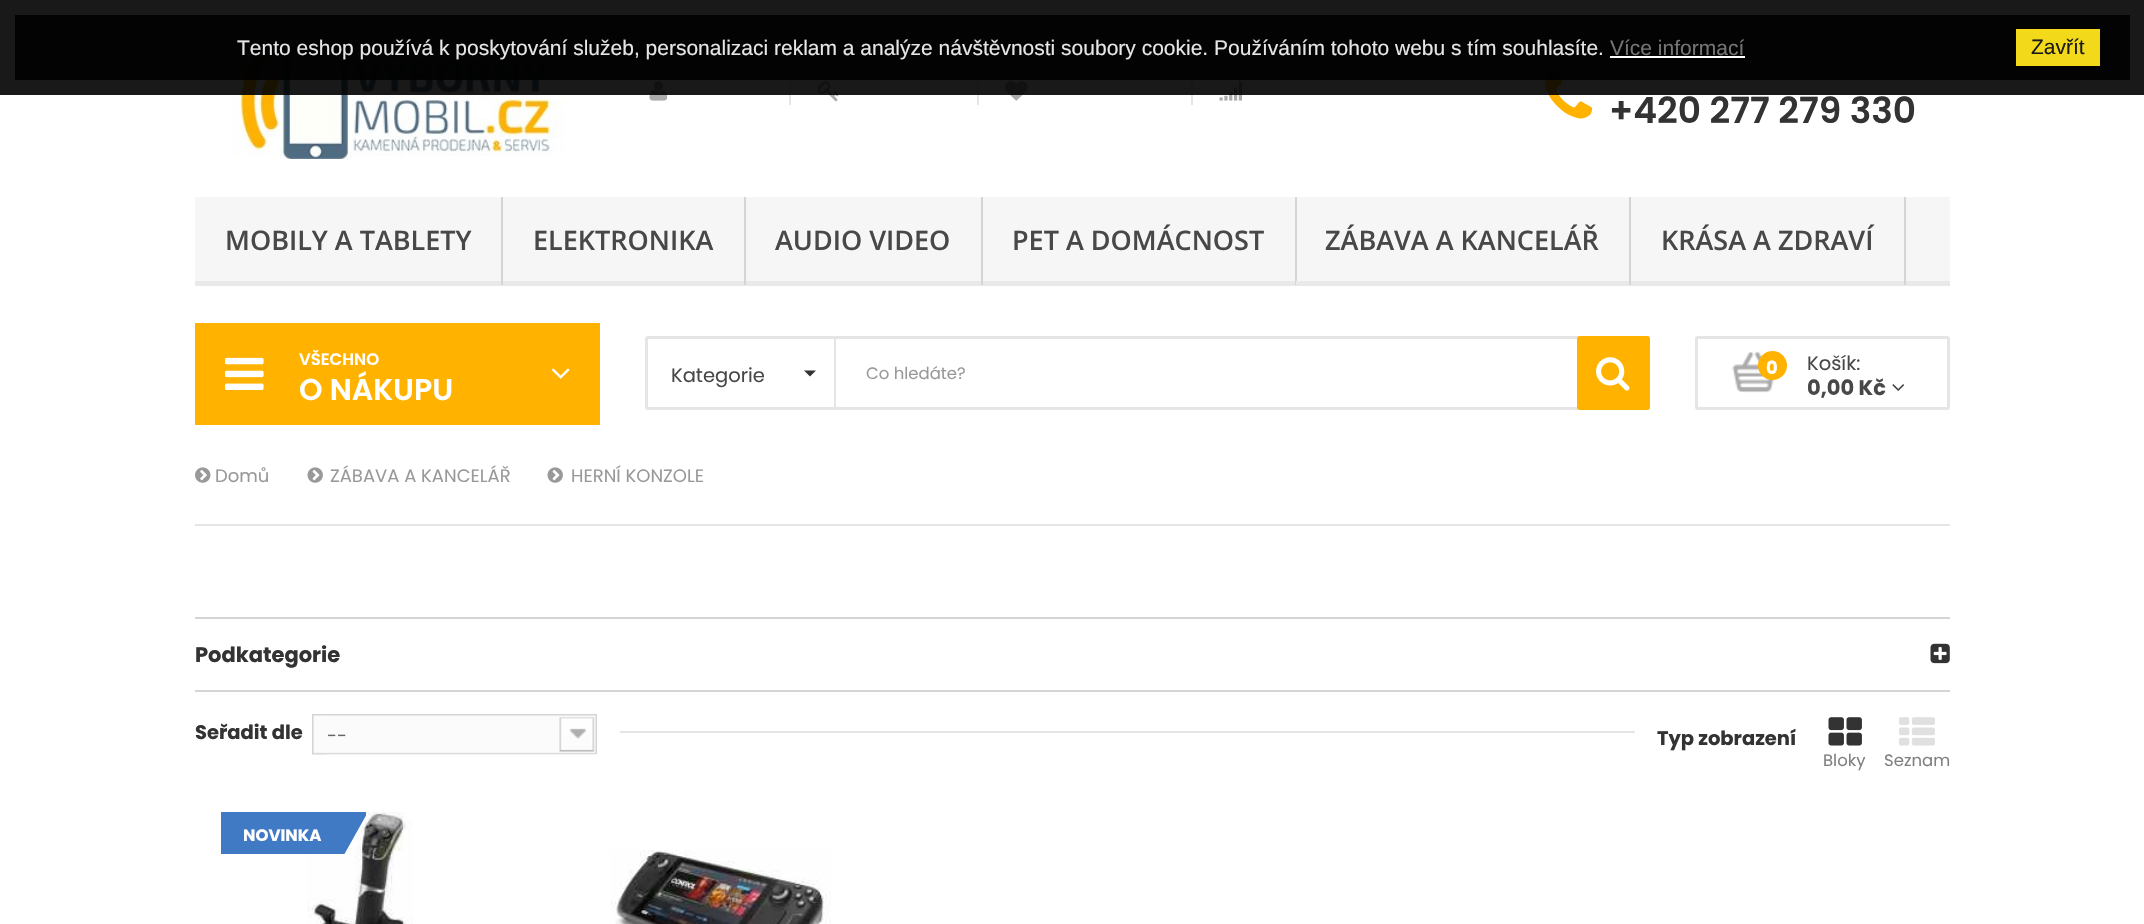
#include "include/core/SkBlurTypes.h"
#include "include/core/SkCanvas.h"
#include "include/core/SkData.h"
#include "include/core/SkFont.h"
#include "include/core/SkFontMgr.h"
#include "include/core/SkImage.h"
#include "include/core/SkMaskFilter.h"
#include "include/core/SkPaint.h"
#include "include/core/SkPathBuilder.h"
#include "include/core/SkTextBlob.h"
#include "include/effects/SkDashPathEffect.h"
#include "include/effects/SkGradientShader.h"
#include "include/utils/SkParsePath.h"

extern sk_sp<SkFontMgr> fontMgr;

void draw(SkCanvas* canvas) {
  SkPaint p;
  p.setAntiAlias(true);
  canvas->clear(SK_ColorWHITE);
  canvas->drawImageRect(SkImages::DeferredFromEncodedData(SkData::MakeFromFileName("images/1.png")), SkRect::MakeLTRB(232, 45, 565, 159), SkSamplingOptions());
  p.setColor(SkColorSetRGB(229, 229, 229));
  canvas->drawRect(SkRect::MakeLTRB(789, 77, 791, 105), p);
  canvas->drawImageRect(SkImages::DeferredFromEncodedData(SkData::MakeFromFileName("images/2.png")), SkRect::MakeLTRB(649, 81, 668, 101), SkSamplingOptions());
  canvas->drawRect(SkRect::MakeLTRB(977, 77, 979, 105), p);
  canvas->drawImageRect(SkImages::DeferredFromEncodedData(SkData::MakeFromFileName("images/3.png")), SkRect::MakeLTRB(817, 81, 839, 102), SkSamplingOptions());
  canvas->drawRect(SkRect::MakeLTRB(1191, 77, 1193, 105), p);
  canvas->drawImageRect(SkImages::DeferredFromEncodedData(SkData::MakeFromFileName("images/4.png")), SkRect::MakeLTRB(1005, 81, 1028, 101), SkSamplingOptions());
  canvas->drawImageRect(SkImages::DeferredFromEncodedData(SkData::MakeFromFileName("images/5.png")), SkRect::MakeLTRB(1219, 81, 1242, 101), SkSamplingOptions());
  canvas->drawImageRect(SkImages::DeferredFromEncodedData(SkData::MakeFromFileName("images/6.png")), SkRect::MakeLTRB(1545, 71, 1593, 119), SkSamplingOptions());
  p.setColor(SkColorSetARGB(230, 0, 0, 0));
  canvas->drawRect(SkRect::MakeLTRB(0, 0, 2144, 95), p);
  canvas->drawRect(SkRect::MakeLTRB(15, 15, 2130, 80), p);
  p.setColor(SK_ColorWHITE);
  canvas->drawRect(SkRect::MakeLTRB(1610, 56, 1745, 58), p);
  p.setColor(SkColorSetRGB(242, 218, 26));
  canvas->drawRect(SkRect::MakeLTRB(2016, 29, 2100, 66), p);
  p.setColor(SkColorSetRGB(246, 246, 246));
  canvas->drawRect(SkRect::MakeLTRB(195, 197, 1950, 281), p);
  p.setColor(SkColorSetRGB(233, 233, 233));
  canvas->drawRect(SkRect::MakeLTRB(195, 281, 1950, 286), p);
  p.setColor(SkColorSetRGB(214, 212, 212));
  canvas->drawRect(SkRect::MakeLTRB(501, 197, 503, 285), p);
  canvas->drawRect(SkRect::MakeLTRB(744, 197, 746, 285), p);
  canvas->drawRect(SkRect::MakeLTRB(981, 197, 983, 285), p);
  canvas->drawRect(SkRect::MakeLTRB(1295, 197, 1297, 285), p);
  canvas->drawRect(SkRect::MakeLTRB(1629, 197, 1631, 285), p);
  p.setColor(SkColorSetRGB(233, 233, 233));
  canvas->drawRect(SkRect::MakeLTRB(1296, 281, 1297, 285), p);
  p.setColor(SkColorSetRGB(214, 212, 212));
  canvas->drawRect(SkRect::MakeLTRB(1904, 197, 1906, 285), p);
  p.setColor(SkColorSetRGB(255, 179, 0));
  canvas->drawRect(SkRect::MakeLTRB(195, 323, 600, 425), p);
  canvas->drawImageRect(SkImages::DeferredFromEncodedData(SkData::MakeFromFileName("images/7.png")), SkRect::MakeLTRB(225, 357, 264, 390), SkSamplingOptions());
  canvas->drawImageRect(SkImages::DeferredFromEncodedData(SkData::MakeFromFileName("images/8.png")), SkRect::MakeLTRB(551, 368, 570, 379), SkSamplingOptions());
  p.setStyle(SkPaint::kStroke_Style);
  p.setStrokeWidth(3);
  p.setColor(SkColorSetRGB(229, 229, 229));
  canvas->drawRoundRect(SkRect::MakeLTRB(646.5f, 337.5f, 1648.5f, 408.5f), 1.5f, 1.5f, p);
  p.setStyle(SkPaint::kFill_Style);
  canvas->drawRect(SkRect::MakeLTRB(834, 339, 836, 407), p);
  p.setColor(SkColorSetRGB(51, 51, 51));
  canvas->drawPath(SkPathBuilder().moveTo(804, 370.5f).lineTo(816, 370.5f).lineTo(810, 376.5f).close().detach(), p);
  p.setColor(SkColorSetRGB(255, 179, 0));
  canvas->drawRoundRect(SkRect::MakeLTRB(1577, 336, 1650, 410), 3, 3, p);
  canvas->drawImageRect(SkImages::DeferredFromEncodedData(SkData::MakeFromFileName("images/9.png")), SkRect::MakeLTRB(1596, 357, 1630, 391), SkSamplingOptions());
  p.setStyle(SkPaint::kStroke_Style);
  p.setColor(SkColorSetRGB(229, 229, 229));
  canvas->drawRoundRect(SkRect::MakeLTRB(1696.5f, 337.5f, 1948.5f, 408.5f), 1.5f, 1.5f, p);
  canvas->drawImageRect(SkImages::DeferredFromEncodedData(SkData::MakeFromFileName("images/10.png")), SkRect::MakeLTRB(1732, 351, 1774, 393), SkSamplingOptions());
  p.setStyle(SkPaint::kFill_Style);
  p.setColor(SkColorSetRGB(255, 179, 0));
  canvas->drawCircle(1772.5f, 365.5f, 14.5f, p);
  canvas->drawImageRect(SkImages::DeferredFromEncodedData(SkData::MakeFromFileName("images/11.png")), SkRect::MakeLTRB(1892, 384, 1904, 391), SkSamplingOptions());
  canvas->drawImageRect(SkImages::DeferredFromEncodedData(SkData::MakeFromFileName("images/12.png")), SkRect::MakeLTRB(195, 467, 211, 483), SkSamplingOptions());
  canvas->drawImageRect(SkImages::DeferredFromEncodedData(SkData::MakeFromFileName("images/13.png")), SkRect::MakeLTRB(307, 467, 323, 483), SkSamplingOptions());
  canvas->drawImageRect(SkImages::DeferredFromEncodedData(SkData::MakeFromFileName("images/13.png")), SkRect::MakeLTRB(547, 467, 563, 483), SkSamplingOptions());
  p.setColor(SkColorSetRGB(229, 229, 229));
  canvas->drawRect(SkRect::MakeLTRB(195, 524, 1950, 526), p);
  p.setColor(SkColorSetRGB(214, 212, 212));
  canvas->drawRect(SkRect::MakeLTRB(195, 617, 1950, 619), p);
  canvas->drawRect(SkRect::MakeLTRB(195, 690, 1950, 692), p);
  canvas->drawImageRect(SkImages::DeferredFromEncodedData(SkData::MakeFromFileName("images/14.png")), SkRect::MakeLTRB(1930, 643, 1950, 664), SkSamplingOptions());
  canvas->drawImageRect(SkImages::DeferredFromEncodedData(SkData::MakeFromFileName("images/15.png")), SkRect::MakeLTRB(312, 714, 328, 755), SkSamplingOptions());
  canvas->drawImageRect(SkImages::DeferredFromEncodedData(SkData::MakeFromFileName("images/16.png")), SkRect::MakeLTRB(327, 714, 597, 755), SkSamplingOptions());
  p.setColor(SkColorSetRGB(229, 229, 229));
  canvas->drawRect(SkRect::MakeLTRB(620, 731, 1635, 733), p);
  canvas->drawImageRect(SkImages::DeferredFromEncodedData(SkData::MakeFromFileName("images/17.png")), SkRect::MakeLTRB(1828, 717, 1862, 746), SkSamplingOptions());
  canvas->drawImageRect(SkImages::DeferredFromEncodedData(SkData::MakeFromFileName("images/18.png")), SkRect::MakeLTRB(1899, 717, 1935, 746), SkSamplingOptions());
  canvas->drawImageRect(SkImages::DeferredFromEncodedData(SkData::MakeFromFileName("images/19.png")), SkRect::MakeLTRB(307, 811, 413, 924), SkSamplingOptions());
  canvas->save();
  canvas->clipRect(SkRect::MakeLTRB(221, 812, 366, 854));
  p.setColor(SkColorSetRGB(64, 122, 197));
  canvas->drawPath(SkPathBuilder().moveTo(302, 776).lineTo(368, 812).lineTo(331, 878).lineTo(266, 842).close().detach(), p);
  canvas->restore();
  canvas->drawRect(SkRect::MakeLTRB(221, 812, 288, 854), p);
  canvas->drawImageRect(SkImages::DeferredFromEncodedData(SkData::MakeFromFileName("images/20.png")), SkRect::MakeLTRB(610, 850, 831, 924), SkSamplingOptions());
  SkFont font1(fontMgr->matchFamilyStyle("Liberation Sans", SkFontStyle::Normal()), 21);
  font1.setSubpixel(true);
  p.setColor(SkColorSetRGB(230, 230, 230));
  canvas->drawString("Tento eshop používá k poskytování služeb, personalizaci reklam a analýze návštěvnosti soubory cookie. Používáním tohoto webu s tím souhlasíte.", 237, 55, font1, p);
  p.setColor(SkColorSetRGB(117, 117, 117));
  canvas->drawString("Více informací", 1610, 55, font1, p);
  p.setColor(SkColorSetRGB(26, 26, 26));
  canvas->drawString("Zavřít", 2031, 54, font1, p);
  SkFont font2(fontMgr->matchFamilyStyle("Poppins", SkFontStyle(600, SkFontStyle::kNormal_Width, SkFontStyle::kUpright_Slant)), 36);
  font2.setSubpixel(true);
  p.setColor(SkColorSetRGB(51, 51, 51));
  canvas->drawString("+420 277 279 330", 1609, 123, font2, p);
  SkFont font3(fontMgr->matchFamilyStyle("Open Sans", SkFontStyle(600, SkFontStyle::kNormal_Width, SkFontStyle::kUpright_Slant)), 27);
  font3.setSubpixel(true);
  p.setColor(SkColorSetRGB(72, 72, 72));
  canvas->drawString("MOBILY A TABLETY", 225, 250, font3, p);
  canvas->drawString("ELEKTRONIKA", 533, 250, font3, p);
  canvas->drawString("AUDIO VIDEO", 775, 250, font3, p);
  canvas->drawString("PET A DOMÁCNOST", 1012, 250, font3, p);
  canvas->drawString("ZÁBAVA A KANCELÁŘ", 1325, 250, font3, p);
  canvas->drawString("KRÁSA A ZDRAVÍ", 1661, 250, font3, p);
  SkFont font4(fontMgr->matchFamilyStyle("Poppins", SkFontStyle(600, SkFontStyle::kNormal_Width, SkFontStyle::kUpright_Slant)), 16.5f);
  font4.setSubpixel(true);
  p.setColor(SK_ColorWHITE);
  canvas->drawString("VŠECHNO", 299, 365, font4, p);
  SkFont font5(fontMgr->matchFamilyStyle("Poppins", SkFontStyle(600, SkFontStyle::kNormal_Width, SkFontStyle::kUpright_Slant)), 30);
  font5.setSubpixel(true);
  canvas->drawString("O NÁKUPU", 299, 400, font5, p);
  SkFont font6(fontMgr->matchFamilyStyle("Poppins", SkFontStyle::Normal()), 19.5f);
  font6.setSubpixel(true);
  p.setColor(SkColorSetRGB(72, 72, 72));
  canvas->drawString("Kategorie", 671, 382, font6, p);
  SkFont font7(fontMgr->matchFamilyStyle("Poppins", SkFontStyle::Normal()), 16.5f);
  font7.setSubpixel(true);
  p.setColor(SkColorSetRGB(153, 153, 153));
  canvas->drawString("Co hledáte?", 866, 379, font7, p);
  SkFont font8(fontMgr->matchFamilyStyle("Poppins", SkFontStyle::Bold()), 18);
  font8.setSubpixel(true);
  p.setColor(SK_ColorWHITE);
  canvas->drawString("0", 1766, 374, font8, p);
  p.setColor(SkColorSetRGB(72, 72, 72));
  canvas->drawString("Košík:", 1807, 370, font6, p);
  SkFont font9(fontMgr->matchFamilyStyle("Poppins", SkFontStyle::Bold()), 21);
  font9.setSubpixel(true);
  canvas->drawString("0,00 Kč", 1807, 395, font9, p);
  SkFont font10(fontMgr->matchFamilyStyle("Poppins", SkFontStyle::Normal()), 18);
  font10.setSubpixel(true);
  p.setColor(SkColorSetRGB(153, 153, 153));
  canvas->drawString("Domů", 215, 482, font10, p);
  canvas->drawString("ZÁBAVA A KANCELÁŘ", 330, 482, font10, p);
  canvas->drawString("HERNÍ KONZOLE", 571, 482, font10, p);
  p.setColor(SkColorSetRGB(51, 51, 51));
  canvas->drawString("Podkategorie", 195, 662, font9, p);
  SkFont font11(fontMgr->matchFamilyStyle("Poppins", SkFontStyle::Bold()), 19.5f);
  font11.setSubpixel(true);
  canvas->drawString("Seřadit dle", 195, 739, font11, p);
  p.setColor(SkColorSetRGB(102, 102, 102));
  canvas->drawString("--", 327, 742, font10, p);
  p.setColor(SkColorSetRGB(51, 51, 51));
  canvas->drawString("Typ zobrazení", 1657, 745, font11, p);
  p.setColor(SkColorSetRGB(128, 128, 128));
  canvas->drawString("Bloky", 1823, 766, font7, p);
  canvas->drawString("Seznam", 1884, 766, font7, p);
  SkFont font12(fontMgr->matchFamilyStyle("Poppins", SkFontStyle::Bold()), 16.5f);
  font12.setSubpixel(true);
  p.setColor(SK_ColorWHITE);
  canvas->drawString("NOVINKA", 243, 841, font12, p);
}
